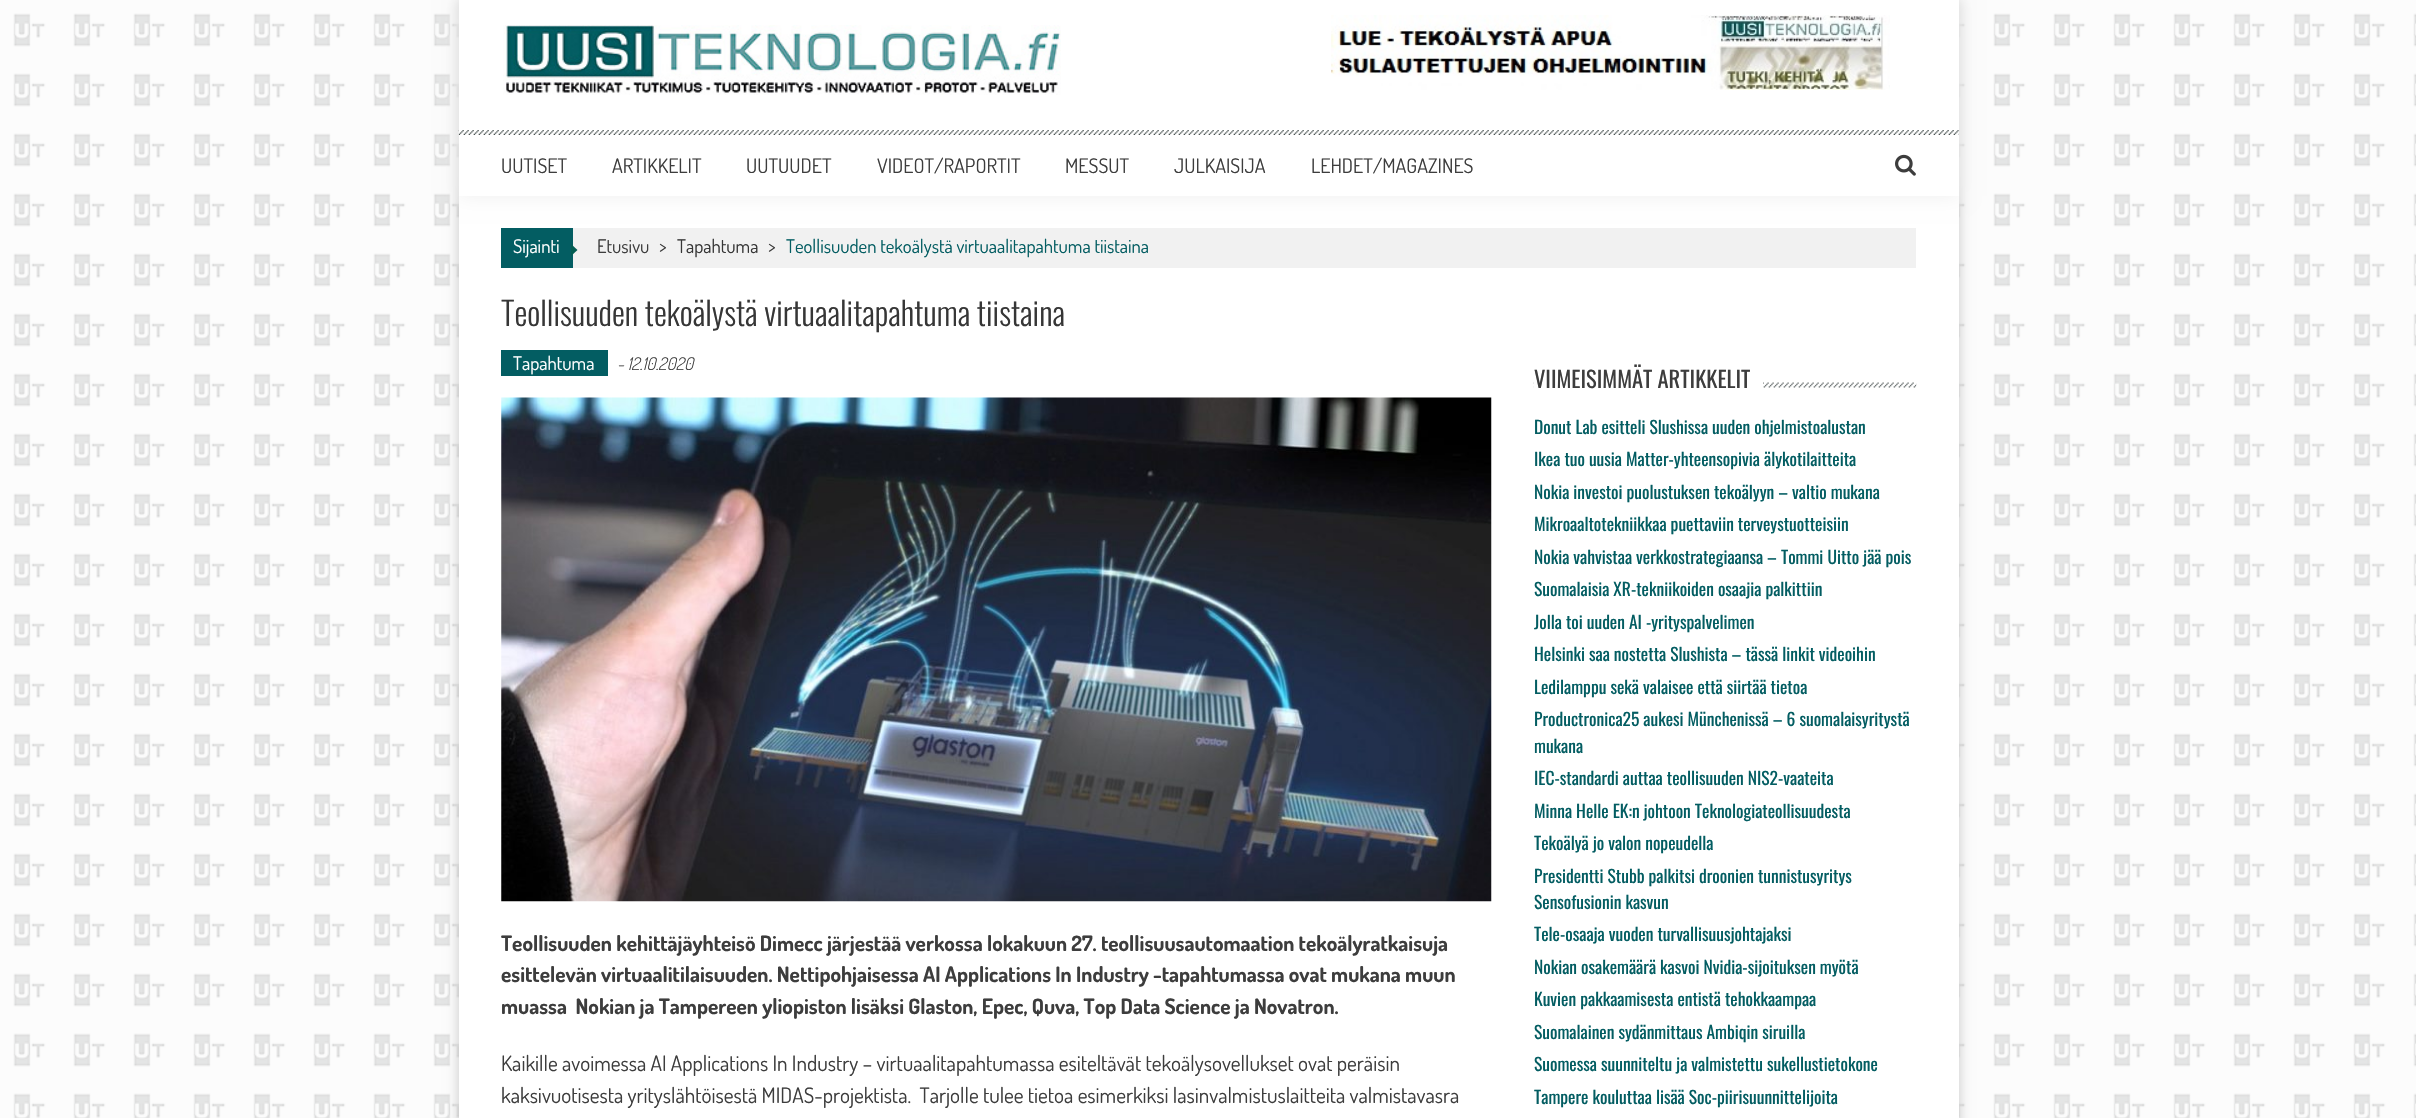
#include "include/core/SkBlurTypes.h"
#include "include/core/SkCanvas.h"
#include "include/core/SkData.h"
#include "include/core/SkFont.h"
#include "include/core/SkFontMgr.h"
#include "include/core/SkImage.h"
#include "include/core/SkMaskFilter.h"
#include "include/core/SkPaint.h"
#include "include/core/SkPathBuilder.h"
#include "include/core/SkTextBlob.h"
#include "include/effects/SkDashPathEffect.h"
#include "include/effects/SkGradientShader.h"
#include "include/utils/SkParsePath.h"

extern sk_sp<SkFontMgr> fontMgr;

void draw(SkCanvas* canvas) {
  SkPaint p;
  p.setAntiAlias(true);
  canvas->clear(SK_ColorWHITE);
  canvas->drawImageRect(SkImages::DeferredFromEncodedData(SkData::MakeFromFileName("images/1.png")), SkRect::MakeLTRB(0, 0, 2416, 1118), SkSamplingOptions());
  p.setColor(SkColorSetRGB(199, 199, 199));
  p.setMaskFilter(SkMaskFilter::MakeBlur(kNormal_SkBlurStyle, 6));
  canvas->drawRect(SkRect::MakeLTRB(459, 0, 1959, 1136), p);
  p.setMaskFilter(nullptr);
  p.setColor(SK_ColorWHITE);
  canvas->drawRect(SkRect::MakeLTRB(459, 0, 1959, 1118), p);
  canvas->save();
  canvas->clipPath(SkPathBuilder(SkPathFillType::kEvenOdd).moveTo(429, 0).lineTo(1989, 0).lineTo(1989, 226).lineTo(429, 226).close().moveTo(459, 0).lineTo(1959, 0).lineTo(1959, 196).lineTo(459, 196).close().detach(), true);
  p.setColor(SkColorSetRGB(239, 239, 239));
  p.setMaskFilter(SkMaskFilter::MakeBlur(kNormal_SkBlurStyle, 9.5f));
  canvas->drawRect(SkRect::MakeLTRB(459, 0, 1959, 196), p);
  p.setMaskFilter(nullptr);
  canvas->restore();
  canvas->drawImageRect(SkImages::DeferredFromEncodedData(SkData::MakeFromFileName("images/2.png")), SkRect::MakeLTRB(458, 130, 1959, 135), SkSamplingOptions());
  canvas->drawImageRect(SkImages::DeferredFromEncodedData(SkData::MakeFromFileName("images/3.png")), SkRect::MakeLTRB(503, 25, 1061, 95), SkSamplingOptions());
  canvas->drawImageRect(SkImages::DeferredFromEncodedData(SkData::MakeFromFileName("images/4.png")), SkRect::MakeLTRB(1331, 15, 1890, 90), SkSamplingOptions());
  canvas->drawImageRect(SkImages::DeferredFromEncodedData(SkData::MakeFromFileName("images/5.png")), SkRect::MakeLTRB(1895, 154, 1916, 176), SkSamplingOptions());
  p.setColor(SkColorSetRGB(241, 241, 241));
  canvas->drawRect(SkRect::MakeLTRB(573, 228, 1916, 268), p);
  p.setColor(SkColorSetRGB(3, 93, 98));
  canvas->drawRect(SkRect::MakeLTRB(501, 228, 573, 268), p);
  p.setColor(SkColorSetRGB(3, 93, 82));
  canvas->drawPath(SkPathBuilder().moveTo(571, 256).lineTo(571, 244).lineTo(577.5f, 250).close().detach(), p);
  p.setColor(SkColorSetRGB(3, 93, 98));
  canvas->drawRect(SkRect::MakeLTRB(501, 350, 608, 376), p);
  canvas->drawImageRect(SkImages::DeferredFromEncodedData(SkData::MakeFromFileName("images/6.png")), SkRect::MakeLTRB(501, 397, 1492, 902), SkSamplingOptions());
  canvas->drawImageRect(SkImages::DeferredFromEncodedData(SkData::MakeFromFileName("images/7.png")), SkRect::MakeLTRB(1533, 382, 1917, 388), SkSamplingOptions());
  p.setColor(SK_ColorWHITE);
  canvas->drawRect(SkRect::MakeLTRB(1534, 382, 1763, 388), p);
  SkFont font1(fontMgr->matchFamilyStyle("Dosis", SkFontStyle::Normal()), 20);
  font1.setSubpixel(true);
  p.setColor(SkColorSetRGB(61, 61, 61));
  canvas->drawString("UUTISET", 501, 173, font1, p);
  canvas->drawString("ARTIKKELIT", 612, 173, font1, p);
  canvas->drawString("UUTUUDET", 746, 173, font1, p);
  canvas->drawString("VIDEOT/RAPORTIT", 877, 173, font1, p);
  canvas->drawString("MESSUT", 1065, 173, font1, p);
  canvas->drawString("JULKAISIJA", 1174, 173, font1, p);
  canvas->drawString("LEHDET/MAGAZINES", 1311, 173, font1, p);
  SkFont font2(fontMgr->matchFamilyStyle("Dosis", SkFontStyle::Normal()), 18.75f);
  font2.setSubpixel(true);
  p.setColor(SK_ColorWHITE);
  canvas->drawString("Sijainti", 513, 253, font2, p);
  p.setColor(SkColorSetRGB(61, 61, 61));
  canvas->drawString("Etusivu", 597, 253, font2, p);
  canvas->drawString(">", 659, 253, font2, p);
  p.setColor(SkColorSetRGB(54, 54, 54));
  canvas->drawString("Tapahtuma", 677, 253, font2, p);
  p.setColor(SkColorSetRGB(61, 61, 61));
  canvas->drawString(">", 768, 253, font2, p);
  p.setColor(SkColorSetRGB(3, 93, 98));
  canvas->drawString("Teollisuuden tekoälystä virtuaalitapahtuma tiistaina", 786, 253, font2, p);
  SkFont font3(fontMgr->matchFamilyStyle("Oswald", SkFontStyle(300, SkFontStyle::kNormal_Width, SkFontStyle::kUpright_Slant)), 32.5f);
  font3.setSubpixel(true);
  p.setColor(SkColorSetRGB(54, 54, 54));
  canvas->drawString("Teollisuuden tekoälystä virtuaalitapahtuma tiistaina", 501, 326, font3, p);
  p.setColor(SK_ColorWHITE);
  canvas->drawString("Tapahtuma", 513, 370, font2, p);
  SkFont font4(fontMgr->matchFamilyStyle("Dosis", SkFontStyle(300, SkFontStyle::kNormal_Width, SkFontStyle::kItalic_Slant)), 17.5f);
  font4.setSubpixel(true);
  p.setColor(SkColorSetRGB(61, 61, 61));
  canvas->drawString("- 12.10.2020", 617, 370, font4, p);
  SkFont font5(fontMgr->matchFamilyStyle("Dosis", SkFontStyle::Bold()), 21.25f);
  font5.setSubpixel(true);
  canvas->drawString("Teollisuuden kehittäjäyhteisö Dimecc järjestää verkossa lokakuun 27. teollisuusautomaation tekoälyratkaisuja", 501, 951, font5, p);
  canvas->drawString("esittelevän virtuaalitilaisuuden. Nettipohjaisessa AI Applications In Industry -tapahtumassa ovat mukana muun", 501, 982, font5, p);
  canvas->drawString("muassa  Nokian ja Tampereen yliopiston lisäksi Glaston, Epec, Quva, Top Data Science ja Novatron.", 501, 1014, font5, p);
  SkFont font6(fontMgr->matchFamilyStyle("Dosis", SkFontStyle::Normal()), 21.25f);
  font6.setSubpixel(true);
  canvas->drawString("Kaikille avoimessa AI Applications In Industry – virtuaalitapahtumassa esiteltävät tekoälysovellukset ovat peräisin", 501, 1071, font6, p);
  canvas->drawString("kaksivuotisesta yrityslähtöisestä MIDAS-projektista.  Tarjolle tulee tietoa esimerkiksi lasinvalmistuslaitteita valmistavasra", 501, 1103, font6, p);
  SkFont font7(fontMgr->matchFamilyStyle("Oswald", SkFontStyle::Normal()), 22.5f);
  font7.setSubpixel(true);
  canvas->drawString("VIIMEISIMMÄT ARTIKKELIT", 1534, 388, font7, p);
  SkFont font8(fontMgr->matchFamilyStyle("Oswald", SkFontStyle::Normal()), 17.5f);
  font8.setSubpixel(true);
  p.setColor(SkColorSetRGB(3, 93, 98));
  canvas->drawString("Donut Lab esitteli Slushissa uuden ohjelmistoalustan", 1534, 434, font8, p);
  canvas->drawString("Ikea tuo uusia Matter-yhteensopivia älykotilaitteita", 1534, 466, font8, p);
  canvas->drawString("Nokia investoi puolustuksen tekoälyyn – valtio mukana", 1534, 499, font8, p);
  canvas->drawString("Mikroaaltotekniikkaa puettaviin terveystuotteisiin", 1534, 531, font8, p);
  canvas->drawString("Nokia vahvistaa verkkostrategiaansa – Tommi Uitto jää pois", 1534, 564, font8, p);
  canvas->drawString("Suomalaisia XR-tekniikoiden osaajia palkittiin", 1534, 596, font8, p);
  canvas->drawString("Jolla toi uuden AI -yrityspalvelimen", 1534, 629, font8, p);
  canvas->drawString("Helsinki saa nostetta Slushista – tässä linkit videoihin", 1534, 661, font8, p);
  canvas->drawString("Ledilamppu sekä valaisee että siirtää tietoa", 1534, 694, font8, p);
  canvas->drawString("Productronica25 aukesi Münchenissä – 6 suomalaisyritystä", 1534, 726, font8, p);
  canvas->drawString("mukana", 1534, 753, font8, p);
  canvas->drawString("IEC-standardi auttaa teollisuuden NIS2-vaateita", 1534, 785, font8, p);
  canvas->drawString("Minna Helle EK:n johtoon Teknologiateollisuudesta", 1534, 818, font8, p);
  canvas->drawString("Tekoälyä jo valon nopeudella", 1534, 850, font8, p);
  canvas->drawString("Presidentti Stubb palkitsi droonien tunnistusyritys", 1534, 883, font8, p);
  canvas->drawString("Sensofusionin kasvun", 1534, 909, font8, p);
  canvas->drawString("Tele-osaaja vuoden turvallisuusjohtajaksi", 1534, 941, font8, p);
  canvas->drawString("Nokian osakemäärä kasvoi Nvidia-sijoituksen myötä", 1534, 974, font8, p);
  canvas->drawString("Kuvien pakkaamisesta entistä tehokkaampaa", 1534, 1006, font8, p);
  canvas->drawString("Suomalainen sydänmittaus Ambiqin siruilla", 1534, 1039, font8, p);
  canvas->drawString("Suomessa suunniteltu ja valmistettu sukellustietokone", 1534, 1071, font8, p);
  canvas->drawString("Tampere kouluttaa lisää Soc-piirisuunnittelijoita", 1534, 1104, font8, p);
}
